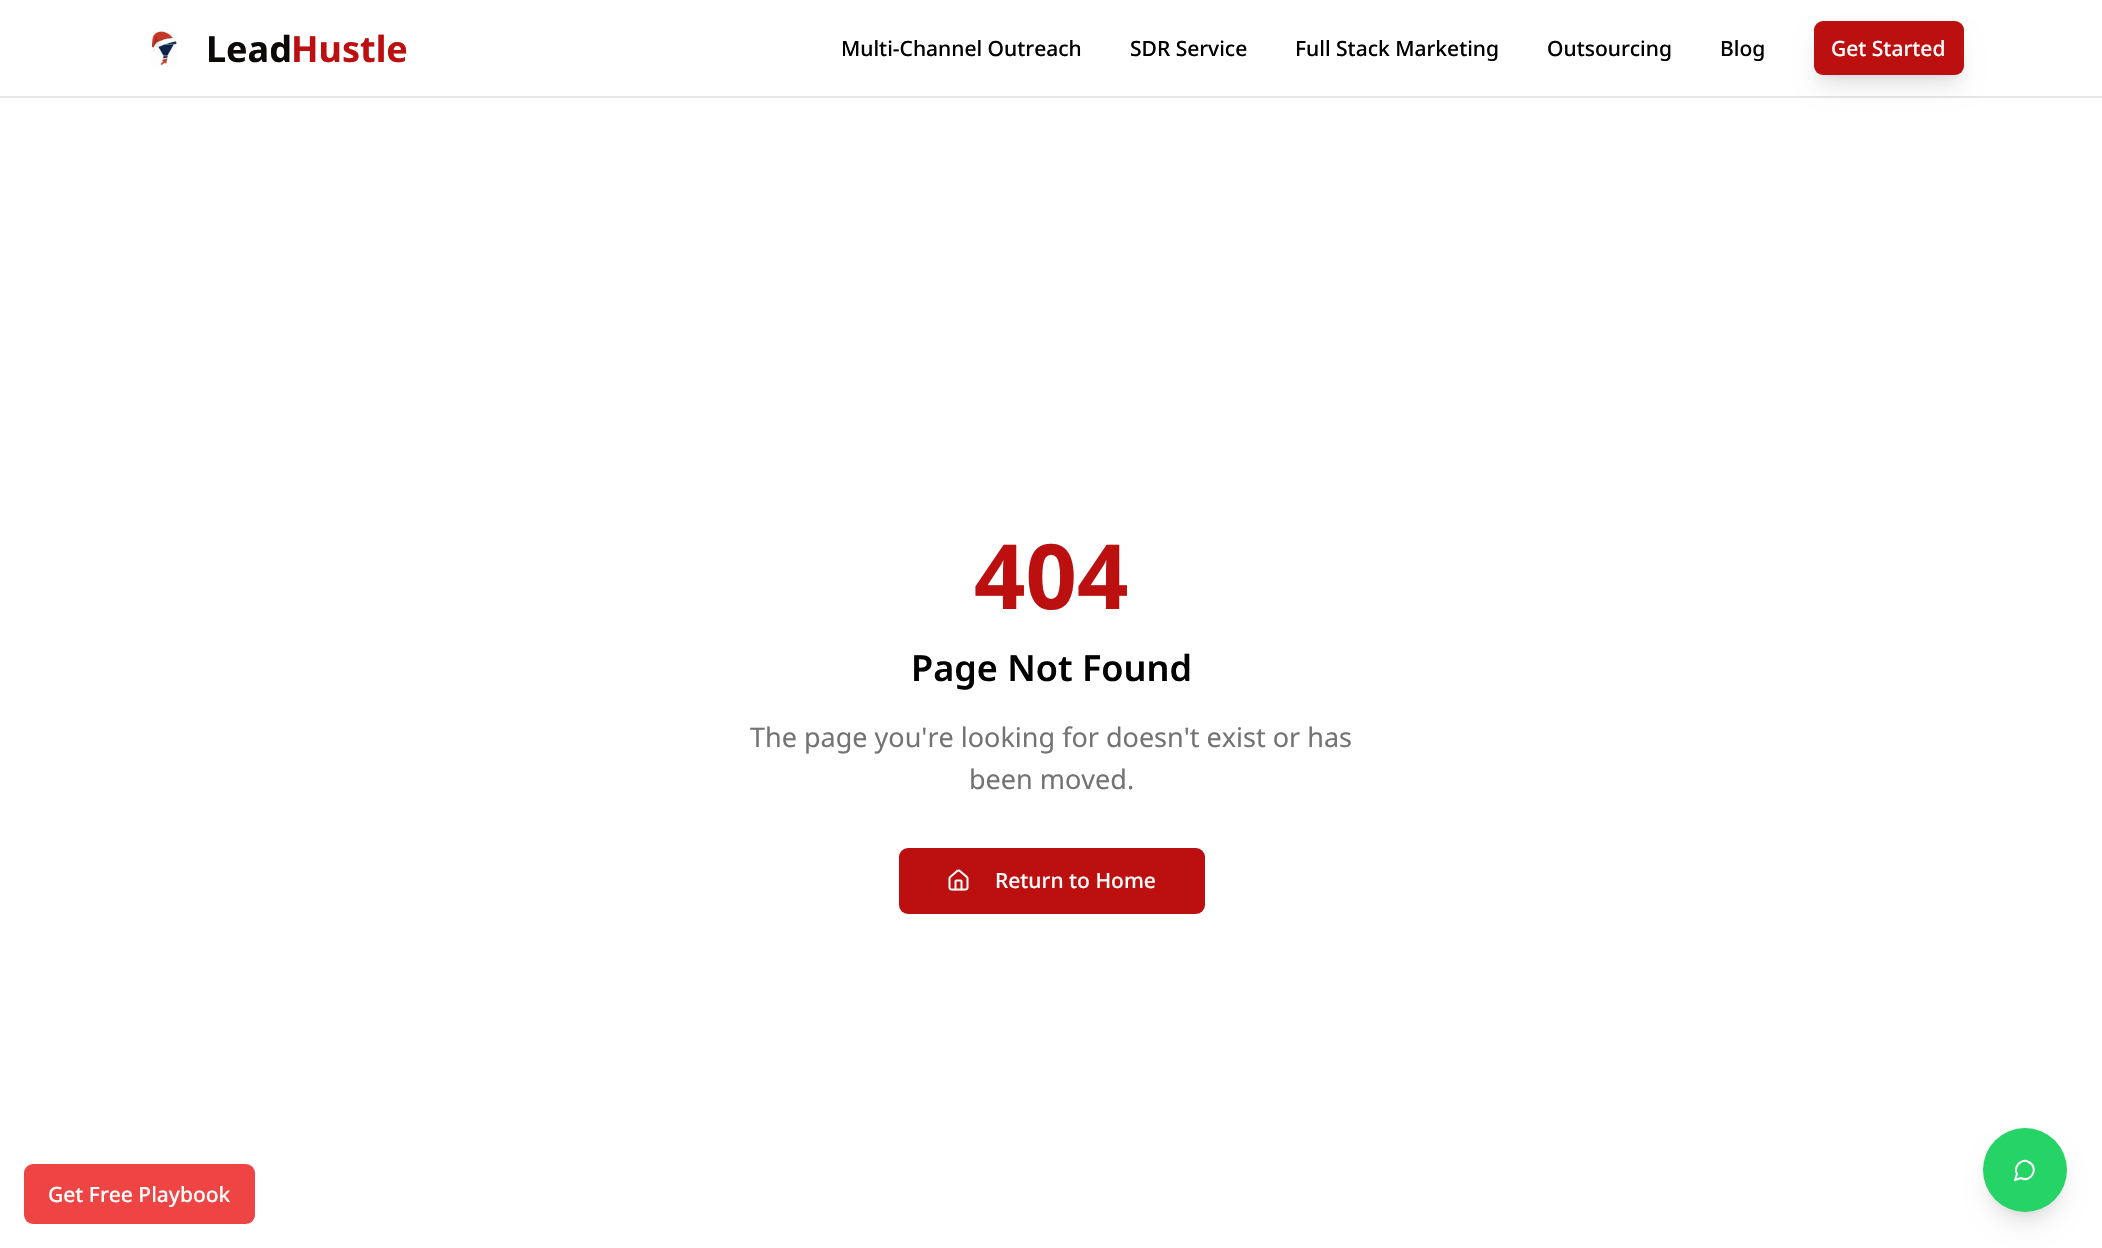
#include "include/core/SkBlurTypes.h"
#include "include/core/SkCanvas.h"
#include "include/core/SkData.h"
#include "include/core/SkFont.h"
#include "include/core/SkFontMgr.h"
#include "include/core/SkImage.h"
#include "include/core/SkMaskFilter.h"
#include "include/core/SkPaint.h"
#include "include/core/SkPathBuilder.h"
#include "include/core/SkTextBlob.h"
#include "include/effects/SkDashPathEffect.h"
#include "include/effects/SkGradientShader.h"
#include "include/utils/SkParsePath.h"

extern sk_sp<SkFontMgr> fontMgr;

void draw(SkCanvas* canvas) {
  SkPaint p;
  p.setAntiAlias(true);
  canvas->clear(SK_ColorWHITE);
  p.setColor(SkColorSetRGB(230, 230, 230));
  canvas->drawRect(SkRect::MakeLTRB(0, 96, 2102, 98), p);
  canvas->drawImageRect(SkImages::DeferredFromEncodedData(SkData::MakeFromFileName("images/1.png")), SkRect::MakeLTRB(150, 31, 177, 66), SkSamplingOptions());
  p.setColor(SkColorSetARGB(26, 0, 0, 0));
  p.setMaskFilter(SkMaskFilter::MakeBlur(kNormal_SkBlurStyle, 4.5f));
  canvas->drawRoundRect(SkRect::MakeLTRB(1820, 33, 1958, 75), 3, 3, p);
  p.setMaskFilter(nullptr);
  p.setMaskFilter(SkMaskFilter::MakeBlur(kNormal_SkBlurStyle, 11));
  canvas->drawRoundRect(SkRect::MakeLTRB(1818, 41, 1959, 86), 5, 5, p);
  p.setMaskFilter(nullptr);
  p.setColor(SkColorSetRGB(188, 16, 16));
  canvas->drawRoundRect(SkRect::MakeLTRB(1814, 21, 1964, 75), 9, 9, p);
  canvas->drawRoundRect(SkRect::MakeLTRB(899, 848, 1205, 914), 9, 9, p);
  canvas->drawImageRect(SkImages::DeferredFromEncodedData(SkData::MakeFromFileName("images/2.png")), SkRect::MakeLTRB(948, 869, 969, 891), SkSamplingOptions());
  p.setColor(SkColorSetRGB(239, 68, 68));
  canvas->drawRoundRect(SkRect::MakeLTRB(24, 1164, 255, 1224), 9, 9, p);
  p.setColor(SkColorSetARGB(26, 0, 0, 0));
  p.setMaskFilter(SkMaskFilter::MakeBlur(kNormal_SkBlurStyle, 4.5f));
  canvas->drawRoundRect(SkRect::MakeLTRB(1989, 1140, 2061, 1212), 36, 36, p);
  p.setMaskFilter(nullptr);
  p.setMaskFilter(SkMaskFilter::MakeBlur(kNormal_SkBlurStyle, 11));
  canvas->drawRoundRect(SkRect::MakeLTRB(1988, 1148, 2063, 1223), 37.5f, 37.5f, p);
  p.setMaskFilter(nullptr);
  p.setColor(SkColorSetRGB(37, 211, 102));
  canvas->drawCircle(2025, 1170, 42, p);
  p.setStyle(SkPaint::kStroke_Style);
  p.setStrokeWidth(2);
  p.setStrokeCap(SkPaint::kRound_Cap);
  p.setStrokeJoin(SkPaint::kRound_Join);
  p.setColor(SK_ColorWHITE);
  canvas->drawPath(SkPathBuilder().moveTo(2021, 1178).cubicTo(2031.5f, 1183.5f, 2039.5f, 1167, 2028.5f, 1162).cubicTo(2026.5f, 1160.5f, 2023.5f, 1160.5f, 2021, 1162).cubicTo(2016.5f, 1164, 2014.5f, 1169.5f, 2017, 1174).lineTo(2015, 1180).close().detach(), p);
  SkFont font1(fontMgr->matchFamilyStyle("Noto Sans", SkFontStyle::Bold()), 36);
  font1.setSubpixel(true);
  p.setStyle(SkPaint::kFill_Style);
  p.setColor(SkColorSetRGB(12, 10, 9));
  canvas->drawString("Lead", 206, 62, font1, p);
  p.setColor(SkColorSetRGB(188, 16, 16));
  canvas->drawString("Hustle", 291, 62, font1, p);
  SkFont font2(fontMgr->matchFamilyStyle("Noto Sans", SkFontStyle(500, SkFontStyle::kNormal_Width, SkFontStyle::kUpright_Slant)), 21);
  font2.setSubpixel(true);
  p.setColor(SK_ColorBLACK);
  canvas->drawString("Multi-Channel Outreach", 841, 56, font2, p);
  canvas->drawString("SDR Service", 1130, 56, font2, p);
  canvas->drawString("Full Stack Marketing", 1295, 56, font2, p);
  canvas->drawString("Outsourcing", 1547, 56, font2, p);
  canvas->drawString("Blog", 1720, 56, font2, p);
  p.setColor(SK_ColorWHITE);
  canvas->drawString("Get Started", 1831, 56, font2, p);
  SkFont font3(fontMgr->matchFamilyStyle("Noto Sans", SkFontStyle::Bold()), 90);
  font3.setSubpixel(true);
  p.setColor(SkColorSetRGB(188, 16, 16));
  canvas->drawString("404", 974, 609, font3, p);
  SkFont font4(fontMgr->matchFamilyStyle("Noto Sans", SkFontStyle(600, SkFontStyle::kNormal_Width, SkFontStyle::kUpright_Slant)), 36);
  font4.setSubpixel(true);
  p.setColor(SK_ColorBLACK);
  canvas->drawString("Page Not Found", 911, 681, font4, p);
  SkFont font5(fontMgr->matchFamilyStyle("Noto Sans", SkFontStyle::Normal()), 27);
  font5.setSubpixel(true);
  p.setColor(SkColorSetRGB(115, 115, 115));
  canvas->drawString("The page you're looking for doesn't exist or has", 750, 747, font5, p);
  canvas->drawString("been moved.", 969, 789, font5, p);
  p.setColor(SK_ColorWHITE);
  canvas->drawString("Return to Home", 995, 888, font2, p);
  canvas->drawString("Get Free Playbook", 48, 1202, font2, p);
}
